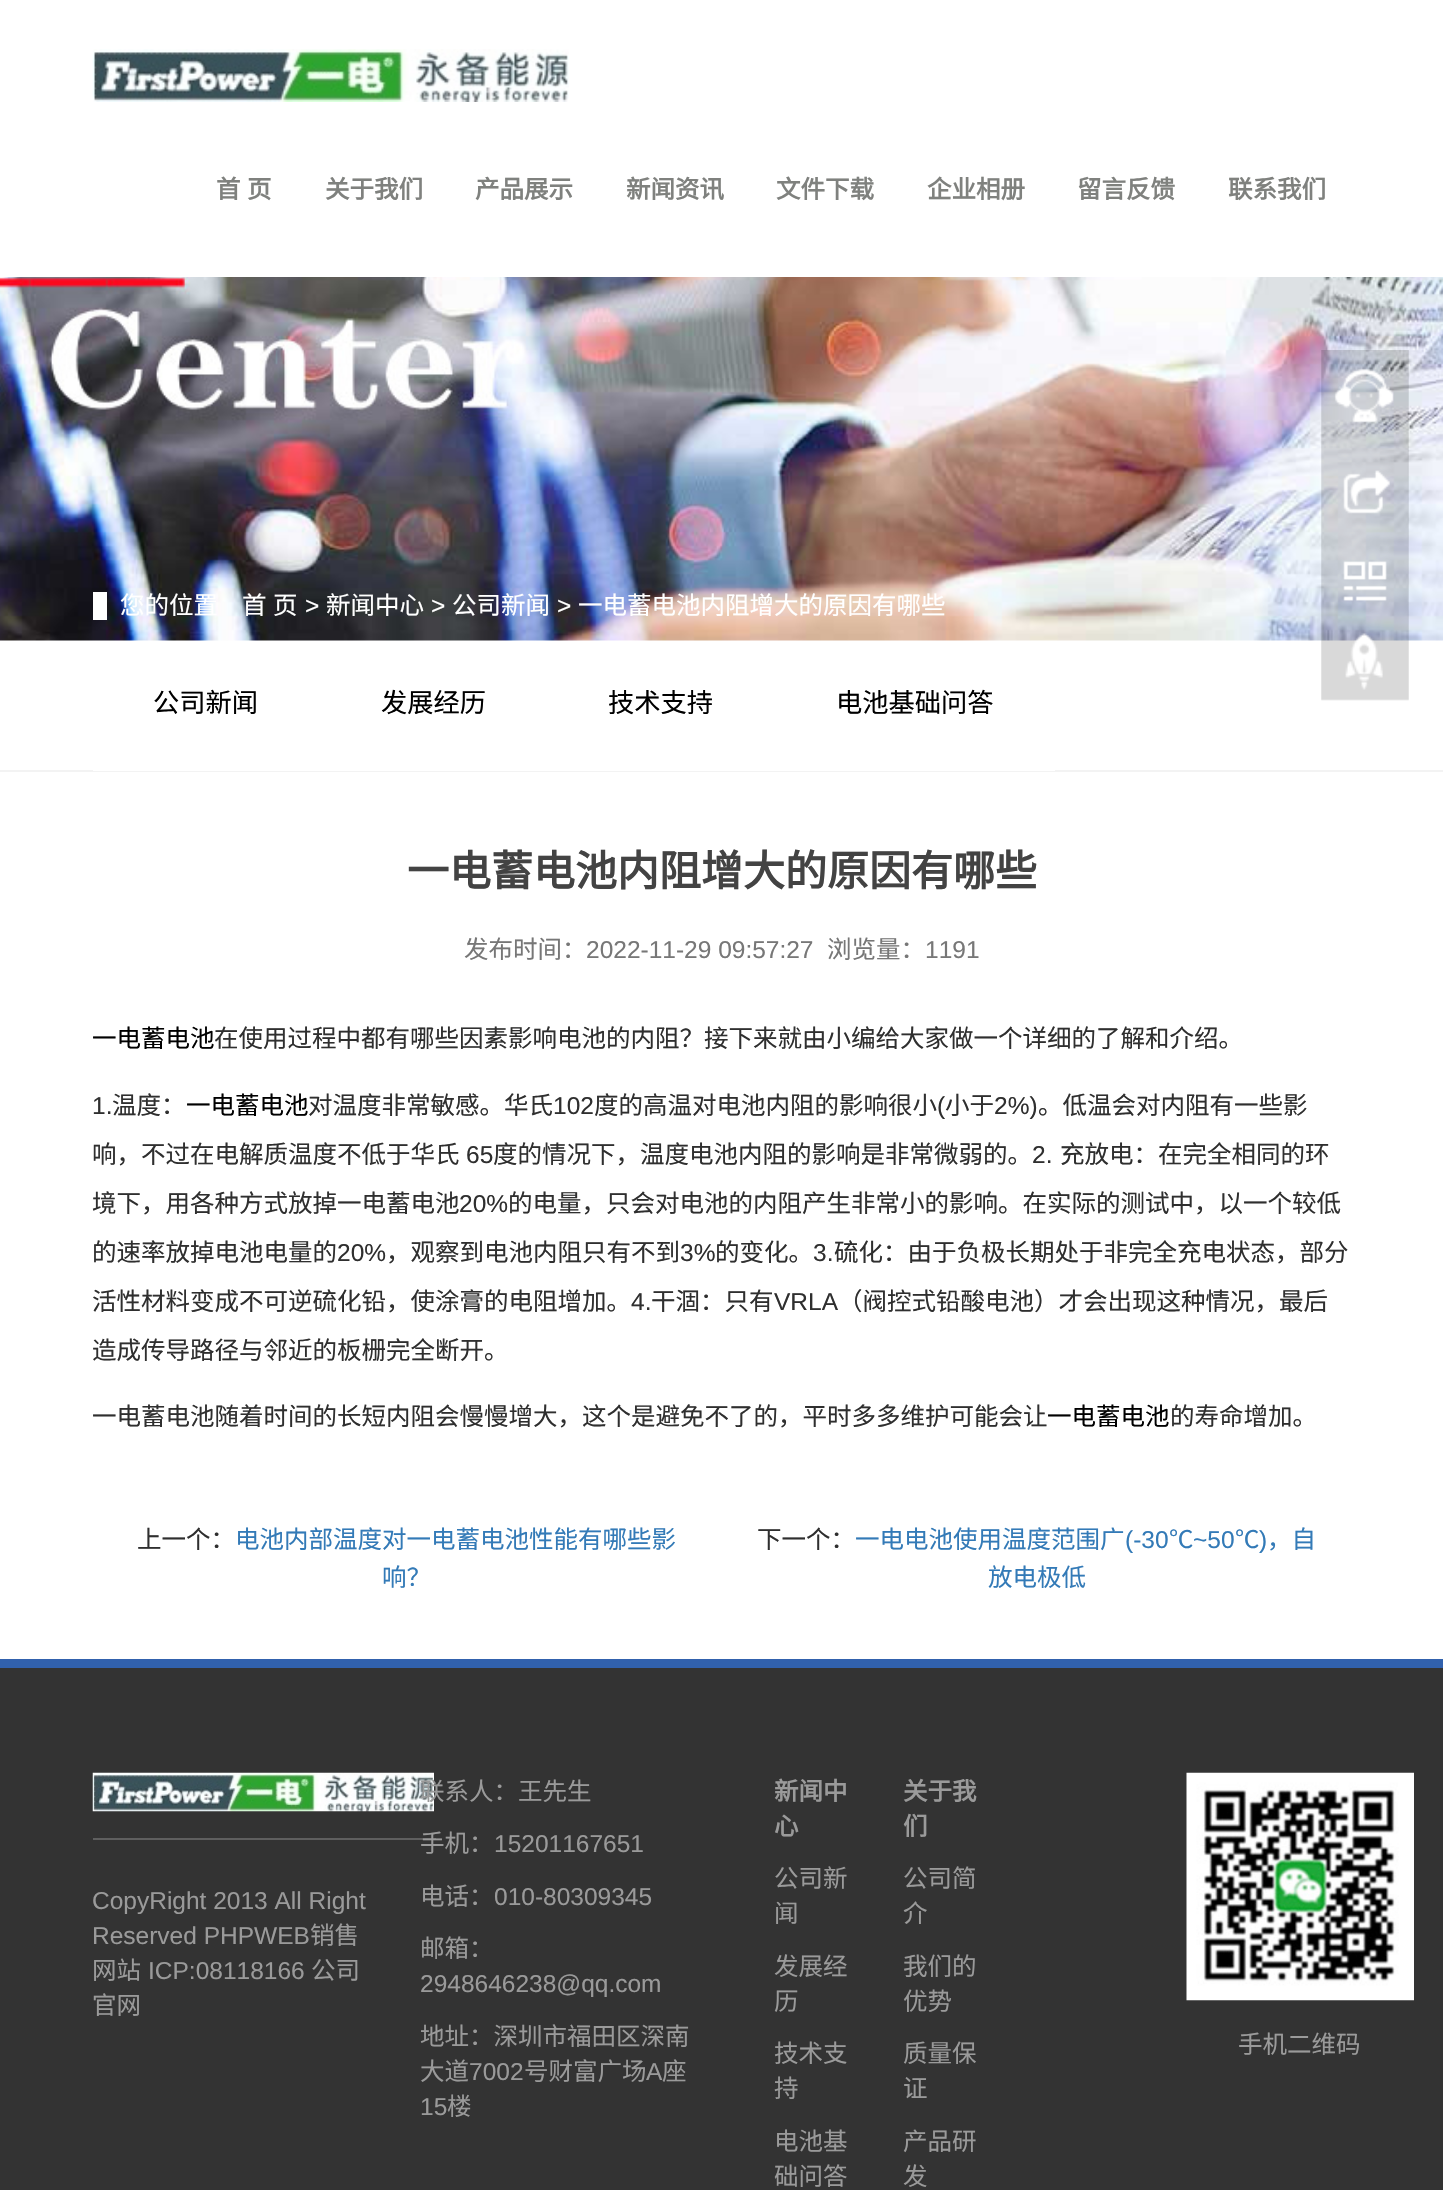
#include "include/core/SkBlurTypes.h"
#include "include/core/SkCanvas.h"
#include "include/core/SkData.h"
#include "include/core/SkFont.h"
#include "include/core/SkFontMgr.h"
#include "include/core/SkImage.h"
#include "include/core/SkMaskFilter.h"
#include "include/core/SkPaint.h"
#include "include/core/SkPathBuilder.h"
#include "include/core/SkTextBlob.h"
#include "include/effects/SkDashPathEffect.h"
#include "include/effects/SkGradientShader.h"
#include "include/utils/SkParsePath.h"

extern sk_sp<SkFontMgr> fontMgr;

void draw(SkCanvas* canvas) {
  SkPaint p;
  p.setAntiAlias(true);
  auto spacedText = [&](const char* s, float x, float y, const SkFont& font, const SkPaint& ink, float letter, float word) {
    std::vector<SkGlyphID> glyphs(font.countText(s, strlen(s), SkTextEncoding::kUTF8));
    std::vector<float> xs(glyphs.size());
    font.textToGlyphs(s, strlen(s), SkTextEncoding::kUTF8, glyphs);
    font.getXPos(glyphs, xs, x);
    float extra = 0;
    for (size_t i = 0; i < glyphs.size(); i++) {
      xs[i] += extra;
      extra += letter + word * (glyphs[i] == font.unicharToGlyph(' '));
    }
    canvas->drawTextBlob(SkTextBlob::MakeFromPosHGlyphs(glyphs, xs, y, font), 0, 0, ink);
  };
  canvas->clear(SK_ColorWHITE);
  canvas->drawImageRect(SkImages::DeferredFromEncodedData(SkData::MakeFromFileName("images/1.png")), SkRect::MakeLTRB(92, 49, 569, 102), SkSamplingOptions());
  canvas->drawImageRect(SkImages::DeferredFromEncodedData(SkData::MakeFromFileName("images/2.png")), SkRect::MakeLTRB(0, 277, 1443, 641), SkSamplingOptions());
  p.setColor(SK_ColorWHITE);
  canvas->drawRect(SkRect::MakeLTRB(93, 592, 107, 620), p);
  canvas->drawImageRect(SkImages::DeferredFromEncodedData(SkData::MakeFromFileName("images/3.png")), SkRect::MakeLTRB(1321, 350, 1409, 701), SkSamplingOptions());
  p.setColor(SkColorSetRGB(243, 243, 243));
  canvas->drawRect(SkRect::MakeLTRB(0, 770, 1443, 772), p);
  p.setColor(SK_ColorWHITE);
  canvas->drawRect(SkRect::MakeLTRB(93, 770, 1055, 771), p);
  p.setColor(SkColorSetRGB(51, 51, 51));
  canvas->drawRect(SkRect::MakeLTRB(0, 1668, 1443, 2190), p);
  p.setColor(SkColorSetRGB(49, 97, 173));
  canvas->drawRect(SkRect::MakeLTRB(0, 1659, 1443, 1668), p);
  canvas->drawImageRect(SkImages::DeferredFromEncodedData(SkData::MakeFromFileName("images/4.png")), SkRect::MakeLTRB(92, 1772, 434, 1812), SkSamplingOptions());
  p.setColor(SkColorSetRGB(95, 95, 95));
  canvas->drawRect(SkRect::MakeLTRB(93, 1838, 436, 1840), p);
  canvas->drawImageRect(SkImages::DeferredFromEncodedData(SkData::MakeFromFileName("images/5.png")), SkRect::MakeLTRB(1186, 1772, 1414, 2001), SkSamplingOptions());
  SkFont font1(fontMgr->matchFamilyStyle("Noto Sans CJK SC", SkFontStyle::Bold()), 24.5f);
  font1.setSubpixel(true);
  p.setColor(SkColorSetRGB(127, 129, 126));
  spacedText("首 页", 216, 198, font1, p, 0, 1);
  canvas->drawString("关于我们", 325, 198, font1, p);
  canvas->drawString("产品展示", 475, 198, font1, p);
  canvas->drawString("新闻资讯", 626, 198, font1, p);
  canvas->drawString("文件下载", 776, 198, font1, p);
  canvas->drawString("企业相册", 927, 198, font1, p);
  canvas->drawString("留言反馈", 1077, 198, font1, p);
  canvas->drawString("联系我们", 1228, 198, font1, p);
  SkFont font2(fontMgr->matchFamilyStyle("Noto Sans CJK SC", SkFontStyle::Normal()), 24.5f);
  font2.setSubpixel(true);
  p.setColor(SK_ColorWHITE);
  canvas->drawString("您的位置", 120, 614, font2, p);
  spacedText("首 页", 242, 614, font2, p, 0, 1);
  SkFont font3(fontMgr->matchFamilyStyle("Liberation Sans", SkFontStyle::Normal()), 24.5f);
  font3.setSubpixel(true);
  canvas->drawString(">", 305, 614, font3, p);
  canvas->drawString("新闻中心", 326, 614, font2, p);
  canvas->drawString(">", 431, 614, font3, p);
  canvas->drawString("公司新闻", 452, 614, font2, p);
  canvas->drawString(">", 557, 614, font3, p);
  canvas->drawString("一电蓄电池内阻增大的原因有哪些", 578, 614, font2, p);
  SkFont font4(fontMgr->matchFamilyStyle("Noto Sans CJK SC", SkFontStyle::Normal()), 26.25f);
  font4.setSubpixel(true);
  p.setColor(SK_ColorBLACK);
  canvas->drawString("公司新闻", 153, 712, font4, p);
  canvas->drawString("发展经历", 381, 712, font4, p);
  canvas->drawString("技术支持", 608, 712, font4, p);
  canvas->drawString("电池基础问答", 836, 712, font4, p);
  SkFont font5(fontMgr->matchFamilyStyle("Noto Sans CJK SC", SkFontStyle::Bold()), 42);
  font5.setSubpixel(true);
  p.setColor(SkColorSetRGB(67, 67, 67));
  canvas->drawString("一电蓄电池内阻增大的原因有哪些", 407, 886, font5, p);
  p.setColor(SkColorSetRGB(119, 119, 119));
  canvas->drawString("发布时间：", 464, 958, font2, p);
  canvas->drawString("2022-11-29 09:57:27", 586, 958, font3, p);
  canvas->drawString("浏览量：", 827, 958, font2, p);
  canvas->drawString("1191", 925, 958, font3, p);
  p.setColor(SK_ColorBLACK);
  canvas->drawString("一电蓄电池", 92, 1047, font2, p);
  p.setColor(SkColorSetRGB(47, 47, 47));
  canvas->drawString("在使用过程中都有哪些因素影响电池的内阻？接下来就由小编给大家做一个详细的了解和介绍。", 214, 1047, font2, p);
  canvas->drawString("1.", 92, 1114, font3, p);
  canvas->drawString("温度：", 112, 1114, font2, p);
  p.setColor(SK_ColorBLACK);
  canvas->drawString("一电蓄电池", 186, 1114, font2, p);
  p.setColor(SkColorSetRGB(47, 47, 47));
  canvas->drawString("对温度非常敏感。华氏", 308, 1114, font2, p);
  canvas->drawString("102", 553, 1114, font3, p);
  canvas->drawString("度的高温对电池内阻的影响很小", 594, 1114, font2, p);
  canvas->drawString("(", 937, 1114, font3, p);
  canvas->drawString("小于", 945, 1114, font2, p);
  canvas->drawString("2%)", 994, 1114, font3, p);
  canvas->drawString("。低温会对内阻有一些影", 1038, 1114, font2, p);
  canvas->drawString("响，不过在电解质温度不低于华氏", 92, 1163, font2, p);
  canvas->drawString("65", 466, 1163, font3, p);
  canvas->drawString("度的情况下，温度电池内阻的影响是非常微弱的。", 493, 1163, font2, p);
  canvas->drawString("2.", 1032, 1163, font3, p);
  canvas->drawString("充放电：在完全相同的环", 1060, 1163, font2, p);
  canvas->drawString("境下，用各种方式放掉一电蓄电池", 92, 1212, font2, p);
  canvas->drawString("20%", 459, 1212, font3, p);
  canvas->drawString("的电量，只会对电池的内阻产生非常小的影响。在实际的测试中，以一个较低", 508, 1212, font2, p);
  canvas->drawString("的速率放掉电池电量的", 92, 1261, font2, p);
  canvas->drawString("20%", 337, 1261, font3, p);
  canvas->drawString("，观察到电池内阻只有不到", 386, 1261, font2, p);
  canvas->drawString("3%", 680, 1261, font3, p);
  canvas->drawString("的变化。", 715, 1261, font2, p);
  canvas->drawString("3.", 813, 1261, font3, p);
  canvas->drawString("硫化：由于负极长期处于非完全充电状态，部分", 834, 1261, font2, p);
  canvas->drawString("活性材料变成不可逆硫化铅，使涂膏的电阻增加。", 92, 1310, font2, p);
  canvas->drawString("4.", 631, 1310, font3, p);
  canvas->drawString("干涸：只有", 651, 1310, font2, p);
  canvas->drawString("VRLA", 774, 1310, font3, p);
  canvas->drawString("（阀控式铅酸电池）才会出现这种情况，最后", 838, 1310, font2, p);
  canvas->drawString("造成传导路径与邻近的板栅完全断开。", 92, 1359, font2, p);
  canvas->drawString("一电蓄电池随着时间的长短内阻会慢慢增大，这个是避免不了的，平时多多维护可能会让", 92, 1425, font2, p);
  p.setColor(SK_ColorBLACK);
  canvas->drawString("一电蓄电池", 1047, 1425, font2, p);
  p.setColor(SkColorSetRGB(47, 47, 47));
  canvas->drawString("的寿命增加。", 1170, 1425, font2, p);
  canvas->drawString("上一个：", 137, 1548, font2, p);
  p.setColor(SkColorSetRGB(51, 122, 183));
  canvas->drawString("电池内部温度对一电蓄电池性能有哪些影", 235, 1548, font2, p);
  canvas->drawString("响？", 382, 1586, font2, p);
  p.setColor(SkColorSetRGB(47, 47, 47));
  canvas->drawString("下一个：", 757, 1548, font2, p);
  p.setColor(SkColorSetRGB(51, 122, 183));
  canvas->drawString("一电电池使用温度范围广", 855, 1548, font2, p);
  canvas->drawString("(-30", 1125, 1548, font3, p);
  canvas->drawString("℃", 1169, 1548, font2, p);
  canvas->drawString("~50", 1193, 1548, font3, p);
  canvas->drawString("℃", 1235, 1548, font2, p);
  canvas->drawString(")", 1259, 1548, font3, p);
  canvas->drawString("，自", 1267, 1548, font2, p);
  canvas->drawString("放电极低", 988, 1586, font2, p);
  p.setColor(SkColorSetRGB(154, 154, 154));
  canvas->drawString("CopyRight 2013 All Right", 92, 1909, font3, p);
  canvas->drawString("Reserved PHPWEB", 92, 1944, font3, p);
  canvas->drawString("销售", 310, 1944, font2, p);
  canvas->drawString("网站", 92, 1979, font2, p);
  canvas->drawString("ICP:08118166", 148, 1979, font3, p);
  canvas->drawString("公司", 311, 1979, font2, p);
  canvas->drawString("官网", 92, 2014, font2, p);
  canvas->drawString("联系人：王先生", 420, 1800, font2, p);
  canvas->drawString("手机：", 420, 1852, font2, p);
  canvas->drawString("15201167651", 494, 1852, font3, p);
  canvas->drawString("电话：", 420, 1905, font2, p);
  canvas->drawString("010-80309345", 494, 1905, font3, p);
  canvas->drawString("邮箱：", 420, 1957, font2, p);
  canvas->drawString("2948646238@qq.com", 420, 1992, font3, p);
  canvas->drawString("地址：深圳市福田区深南", 420, 2045, font2, p);
  canvas->drawString("大道", 420, 2080, font2, p);
  canvas->drawString("7002", 469, 2080, font3, p);
  canvas->drawString("号财富广场", 524, 2080, font2, p);
  canvas->drawString("A", 646, 2080, font3, p);
  canvas->drawString("座", 662, 2080, font2, p);
  canvas->drawString("15", 420, 2115, font3, p);
  canvas->drawString("楼", 447, 2115, font2, p);
  canvas->drawString("新闻中", 774, 1800, font1, p);
  canvas->drawString("心", 774, 1835, font1, p);
  canvas->drawString("公司新", 774, 1887, font2, p);
  canvas->drawString("闻", 774, 1922, font2, p);
  canvas->drawString("发展经", 774, 1975, font2, p);
  canvas->drawString("历", 774, 2010, font2, p);
  canvas->drawString("技术支", 774, 2062, font2, p);
  canvas->drawString("持", 774, 2097, font2, p);
  canvas->drawString("电池基", 774, 2150, font2, p);
  canvas->drawString("础问答", 774, 2185, font2, p);
  canvas->drawString("关于我", 903, 1800, font1, p);
  canvas->drawString("们", 903, 1835, font1, p);
  canvas->drawString("公司简", 903, 1887, font2, p);
  canvas->drawString("介", 903, 1922, font2, p);
  canvas->drawString("我们的", 903, 1975, font2, p);
  canvas->drawString("优势", 903, 2010, font2, p);
  canvas->drawString("质量保", 903, 2062, font2, p);
  canvas->drawString("证", 903, 2097, font2, p);
  canvas->drawString("产品研", 903, 2150, font2, p);
  canvas->drawString("发", 903, 2185, font2, p);
  canvas->drawString("手机二维码", 1238, 2053, font2, p);
}
